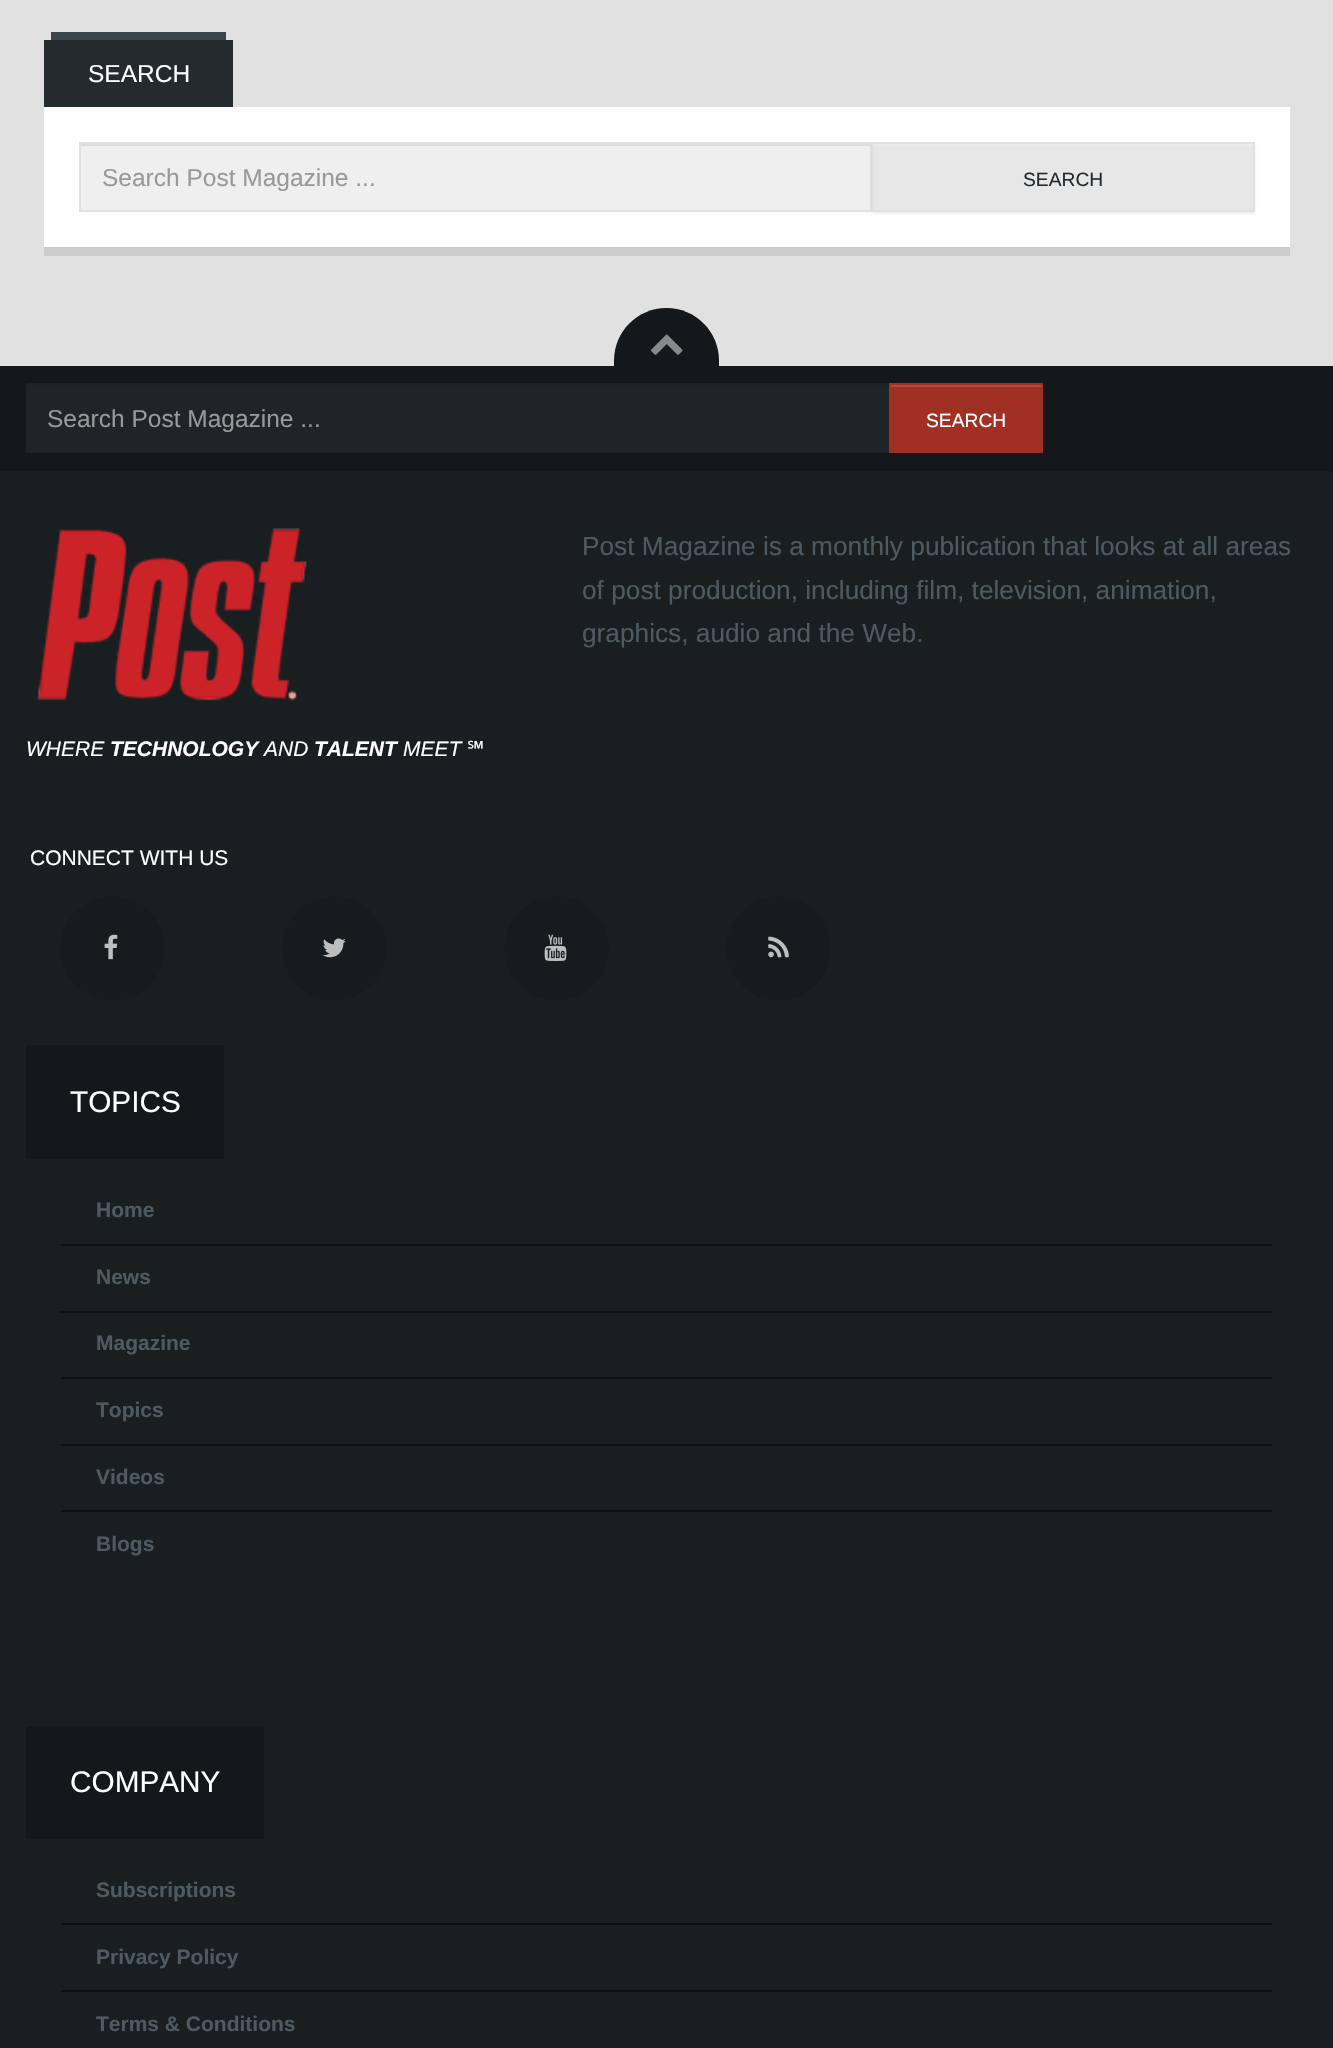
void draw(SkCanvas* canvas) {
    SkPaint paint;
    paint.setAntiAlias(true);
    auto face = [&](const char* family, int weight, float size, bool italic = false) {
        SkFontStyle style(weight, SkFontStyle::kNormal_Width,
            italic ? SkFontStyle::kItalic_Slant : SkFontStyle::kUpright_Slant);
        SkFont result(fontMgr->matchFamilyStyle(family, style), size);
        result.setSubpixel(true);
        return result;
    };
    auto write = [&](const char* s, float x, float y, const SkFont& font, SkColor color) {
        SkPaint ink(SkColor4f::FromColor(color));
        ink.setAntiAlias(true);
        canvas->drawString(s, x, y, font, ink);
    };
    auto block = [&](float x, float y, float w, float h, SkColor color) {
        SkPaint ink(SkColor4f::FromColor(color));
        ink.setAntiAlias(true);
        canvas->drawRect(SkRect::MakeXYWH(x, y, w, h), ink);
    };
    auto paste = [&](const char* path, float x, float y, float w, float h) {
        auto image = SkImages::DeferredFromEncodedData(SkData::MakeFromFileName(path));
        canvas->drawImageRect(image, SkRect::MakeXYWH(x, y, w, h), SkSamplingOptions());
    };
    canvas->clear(SkColorSetRGB(225, 225, 225));
    block(51, 32, 175, 8, SkColorSetRGB(58, 69, 76));
    block(44, 40, 189, 67, SkColorSetRGB(36, 43, 47));
    auto kFont1 = face("Liberation Sans", 400, 24.5f);
    write("SEARCH", 88, 82, kFont1, SK_ColorWHITE);
    block(44, 107, 1246, 140, SK_ColorWHITE);
    block(44, 247, 1246, 9, SkColorSetRGB(204, 204, 204));
    block(81, 146, 789, 64, SkColorSetRGB(239, 239, 239));
    block(81, 144, 789, 2, SkColorSetRGB(221, 221, 221));
    paint.setStyle(SkPaint::kStroke_Style);
    paint.setStrokeWidth(2);
    paint.setColor(SkColorSetRGB(225, 225, 225));
    canvas->drawRect(SkRect::MakeXYWH(80, 143, 791, 68), paint);
    write("Search Post Magazine ...", 102, 186, kFont1, SkColorSetRGB(153, 153, 153));
    paint.setStyle(SkPaint::kFill_Style);
    paint.setColor(SkColorSetARGB(18, 0, 0, 0));
    paint.setMaskFilter(SkMaskFilter::MakeBlur(kNormal_SkBlurStyle, 1));
    canvas->drawRect(SkRect::MakeXYWH(872, 144, 383, 70), paint);
    paint.setMaskFilter(nullptr);
    block(874, 146, 379, 64, SkColorSetRGB(231, 231, 231));
    block(873, 144, 380, 2, SkColorSetRGB(235, 235, 235));
    paint.setStyle(SkPaint::kStroke_Style);
    paint.setColor(SkColorSetRGB(225, 225, 225));
    canvas->drawRect(SkRect::MakeXYWH(873, 143, 381, 68), paint);
    auto kFont2 = face("Liberation Sans", 400, 19.25f);
    write("SEARCH", 1023, 186, kFont2, SkColorSetRGB(36, 43, 47));
    paint.setStyle(SkPaint::kFill_Style);
    paint.setColor(SkColorSetRGB(20, 24, 27));
    canvas->drawPath(SkPathBuilder().moveTo(666.5f, 308).cubicTo(695.5f, 308, 719, 331.5f, 719, 360.5f).lineTo(719, 366).lineTo(614, 366).lineTo(614, 360.5f).cubicTo(614, 331.5f, 637.5f, 308, 666.5f, 308).close().detach(), paint);
    paste("pic1.png", 651, 334, 32, 21);
    block(0, 366, 1333, 105, SkColorSetRGB(20, 24, 27));
    block(26, 385, 863, 68, SkColorSetRGB(30, 36, 40));
    block(26, 383, 863, 2, SkColorSetRGB(28, 33, 37));
    write("Search Post Magazine ...", 47, 427, kFont1, SkColorSetRGB(153, 153, 153));
    block(889, 383, 154, 70, SkColorSetRGB(160, 47, 36));
    block(891, 385, 150, 2, SkColorSetRGB(174, 78, 69));
    write("SEARCH", 926, 427, kFont2, SK_ColorWHITE);
    block(0, 471, 1333, 1577, SkColorSetRGB(25, 30, 33));
    auto kFont3 = face("Liberation Sans", 400, 26.25f);
    write("Post Magazine is a monthly publication that looks at all areas", 582, 555, kFont3, SkColorSetRGB(77, 90, 98));
    write("of post production, including film, television, animation,", 582, 599, kFont3, SkColorSetRGB(77, 90, 98));
    write("graphics, audio and the Web.", 582, 642, kFont3, SkColorSetRGB(77, 90, 98));
    paste("pic2.png", 37, 528, 270, 173);
    auto kFont4 = face("Liberation Sans", 400, 21, true);
    write("WHERE", 26, 756, kFont4, SK_ColorWHITE);
    auto kFont5 = face("Liberation Sans", 700, 21, true);
    write("TECHNOLOGY", 110, 756, kFont5, SK_ColorWHITE);
    write("AND", 264, 756, kFont4, SK_ColorWHITE);
    write("TALENT", 314, 756, kFont5, SK_ColorWHITE);
    write("MEET", 403, 756, kFont4, SK_ColorWHITE);
    auto kFont6 = face("Noto Sans", 400, 21);
    write("℠", 467, 756, kFont6, SK_ColorWHITE);
    auto kFont7 = face("Liberation Sans", 400, 21);
    write("CONNECT WITH US", 30, 865, kFont7, SK_ColorWHITE);
    paint.setColor(SkColorSetRGB(23, 27, 30));
    canvas->drawCircle(112.5f, 948.5f, 52.5f, paint);
    paste("pic3.png", 104, 934, 14, 26);
    canvas->drawCircle(334.5f, 948.5f, 52.5f, paint);
    paste("pic4.png", 322, 938, 24, 20);
    canvas->drawCircle(556.5f, 948.5f, 52.5f, paint);
    paste("pic5.png", 544, 934, 23, 27);
    canvas->drawCircle(778.5f, 948.5f, 52.5f, paint);
    paste("pic6.png", 768, 936, 21, 22);
    block(26, 1045, 198, 114, SkColorSetRGB(20, 24, 27));
    auto kFont8 = face("Liberation Sans", 400, 29.75f);
    write("TOPICS", 70, 1112, kFont8, SK_ColorWHITE);
    auto kFont9 = face("Liberation Sans", 700, 21);
    write("Home", 96, 1217, kFont9, SkColorSetRGB(77, 90, 98));
    block(61, 1244, 1211, 2, SkColorSetRGB(13, 15, 17));
    write("News", 96, 1284, kFont9, SkColorSetRGB(77, 90, 98));
    block(61, 1311, 1211, 2, SkColorSetRGB(13, 15, 17));
    write("Magazine", 96, 1350, kFont9, SkColorSetRGB(77, 90, 98));
    block(61, 1377, 1211, 2, SkColorSetRGB(13, 15, 17));
    write("Topics", 96, 1417, kFont9, SkColorSetRGB(77, 90, 98));
    block(61, 1444, 1211, 2, SkColorSetRGB(13, 15, 17));
    write("Videos", 96, 1484, kFont9, SkColorSetRGB(77, 90, 98));
    block(61, 1510, 1211, 2, SkColorSetRGB(13, 15, 17));
    write("Blogs", 96, 1551, kFont9, SkColorSetRGB(77, 90, 98));
    block(26, 1726, 238, 113, SkColorSetRGB(20, 24, 27));
    write("COMPANY", 70, 1792, kFont8, SK_ColorWHITE);
    write("Subscriptions", 96, 1897, kFont9, SkColorSetRGB(77, 90, 98));
    block(61, 1923, 1211, 2, SkColorSetRGB(13, 15, 17));
    write("Privacy Policy", 96, 1964, kFont9, SkColorSetRGB(77, 90, 98));
    block(61, 1990, 1211, 2, SkColorSetRGB(13, 15, 17));
    write("Terms & Conditions", 96, 2031, kFont9, SkColorSetRGB(77, 90, 98));
}
